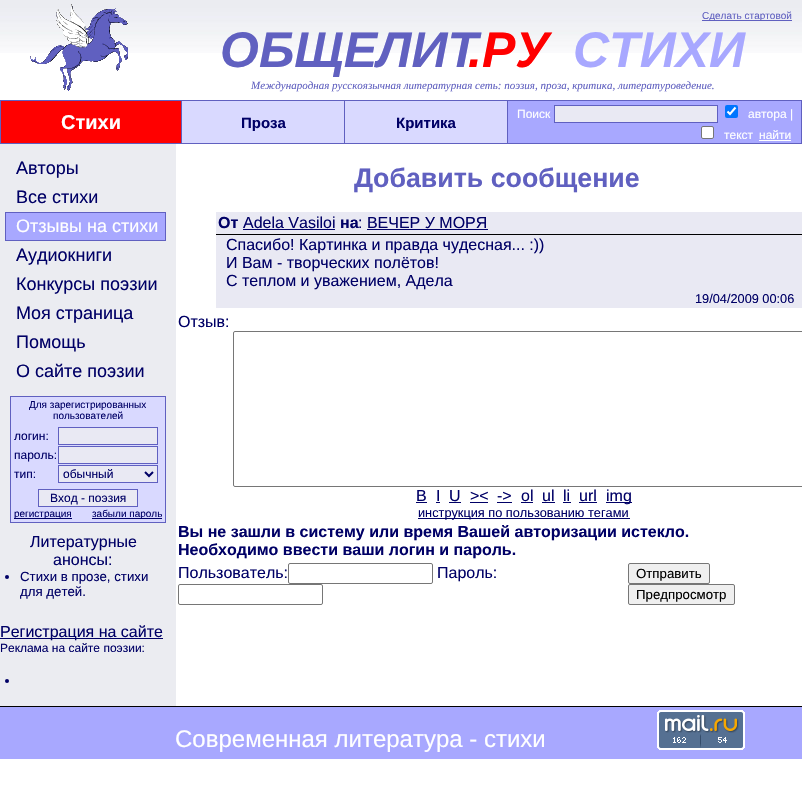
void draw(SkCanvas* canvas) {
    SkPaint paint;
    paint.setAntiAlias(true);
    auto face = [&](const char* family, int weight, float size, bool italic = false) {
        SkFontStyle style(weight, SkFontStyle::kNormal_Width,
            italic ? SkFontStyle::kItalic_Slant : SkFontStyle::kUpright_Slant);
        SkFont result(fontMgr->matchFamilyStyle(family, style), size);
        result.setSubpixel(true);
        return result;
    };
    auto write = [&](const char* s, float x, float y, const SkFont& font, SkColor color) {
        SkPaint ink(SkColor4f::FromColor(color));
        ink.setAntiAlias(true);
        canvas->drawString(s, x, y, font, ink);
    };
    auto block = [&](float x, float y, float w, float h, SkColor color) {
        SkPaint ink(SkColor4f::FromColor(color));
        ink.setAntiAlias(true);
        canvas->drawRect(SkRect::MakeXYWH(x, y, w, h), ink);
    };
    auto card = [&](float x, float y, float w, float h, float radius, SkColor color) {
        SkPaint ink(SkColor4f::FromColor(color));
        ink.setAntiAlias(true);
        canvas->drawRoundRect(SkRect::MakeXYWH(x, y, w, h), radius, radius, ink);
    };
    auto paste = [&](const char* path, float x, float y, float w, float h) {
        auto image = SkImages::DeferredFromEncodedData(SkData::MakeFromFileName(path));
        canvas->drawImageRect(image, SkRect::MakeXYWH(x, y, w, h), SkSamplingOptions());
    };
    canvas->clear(SK_ColorWHITE);
    paste("pic1.png", 0, 0, 802, 53);
    paste("pic2.png", 30, 4, 98, 87);
    block(702, 20, 90, 1, SkColorSetRGB(96, 96, 192));
    auto kFont1 = face("Liberation Sans", 400, 10);
    write("Сделать стартовой", 702, 19, kFont1, SkColorSetRGB(96, 96, 192));
    auto kFont2 = face("Liberation Sans", 700, 50, true);
    write("ОБЩЕЛИТ", 220, 67, kFont2, SkColorSetRGB(96, 96, 192));
    write(".РУ", 468, 67, kFont2, SkColorSetRGB(255, 0, 0));
    write("СТИХИ", 573, 67, kFont2, SkColorSetRGB(168, 168, 255));
    auto kFont3 = face("Liberation Serif", 400, 11, true);
    write("Международная русскоязычная литературная сеть: поэзия, проза, критика, литературоведение.", 251, 89, kFont3, SkColorSetRGB(96, 96, 192));
    block(0, 100, 802, 44, SkColorSetRGB(96, 96, 192));
    block(1, 101, 180, 42, SkColorSetRGB(255, 0, 0));
    auto kFont4 = face("Liberation Sans", 700, 20);
    write("Стихи", 61, 129, kFont4, SK_ColorWHITE);
    block(182, 101, 162, 42, SkColorSetRGB(217, 217, 255));
    auto kFont5 = face("Liberation Sans", 700, 15);
    write("Проза", 241, 128, kFont5, SkColorSetRGB(0, 0, 102));
    block(345, 101, 162, 42, SkColorSetRGB(217, 217, 255));
    write("Критика", 396, 128, kFont5, SkColorSetRGB(0, 0, 102));
    block(508, 101, 293, 42, SkColorSetRGB(168, 168, 255));
    auto kFont6 = face("Liberation Sans", 400, 12);
    write("Поиск", 517, 118, kFont6, SK_ColorWHITE);
    paint.setColor(SkColorSetRGB(233, 233, 243));
    canvas->drawRect(SkRect::MakeXYWH(554.5f, 105.5f, 163, 17), paint);
    paint.setStyle(SkPaint::kStroke_Style);
    paint.setStrokeWidth(1);
    paint.setColor(SkColorSetRGB(96, 96, 192));
    canvas->drawRect(SkRect::MakeXYWH(554.5f, 105.5f, 163, 17), paint);
    card(725, 105, 13, 13, 2, SkColorSetRGB(0, 117, 255));
    paint.setStrokeWidth(2.1f);
    paint.setColor(SK_ColorWHITE);
    canvas->drawPath(SkPathBuilder().moveTo(727.5f, 111.5f).lineTo(730, 114).lineTo(735.5f, 107.5f).detach(), paint);
    write("автора |", 748, 118, kFont6, SK_ColorWHITE);
    paint.setStyle(SkPaint::kFill_Style);
    canvas->drawRoundRect(SkRect::MakeXYWH(701.5f, 126.5f, 12, 12), 1.5f, 1.5f, paint);
    paint.setStyle(SkPaint::kStroke_Style);
    paint.setStrokeWidth(1);
    paint.setColor(SkColorSetRGB(118, 118, 118));
    canvas->drawRoundRect(SkRect::MakeXYWH(701.5f, 126.5f, 12, 12), 1.5f, 1.5f, paint);
    write("текст", 724, 139, kFont6, SK_ColorWHITE);
    write("найти", 759, 139, kFont6, SK_ColorWHITE);
    block(759, 140, 32, 1, SK_ColorWHITE);
    block(0, 144, 176, 562, SkColorSetRGB(235, 236, 241));
    auto kFont7 = face("Liberation Sans", 400, 18);
    write("Авторы", 16, 174, kFont7, SkColorSetRGB(0, 0, 102));
    write("Все стихи", 16, 203, kFont7, SkColorSetRGB(0, 0, 102));
    paint.setStyle(SkPaint::kFill_Style);
    paint.setColor(SkColorSetRGB(168, 168, 255));
    canvas->drawRect(SkRect::MakeXYWH(5.5f, 212.5f, 160, 28), paint);
    paint.setStyle(SkPaint::kStroke_Style);
    paint.setColor(SkColorSetRGB(96, 96, 192));
    canvas->drawRect(SkRect::MakeXYWH(5.5f, 212.5f, 160, 28), paint);
    write("Отзывы на стихи", 16, 232, kFont7, SK_ColorWHITE);
    write("Аудиокниги", 16, 261, kFont7, SkColorSetRGB(0, 0, 102));
    write("Конкурсы поэзии", 16, 290, kFont7, SkColorSetRGB(0, 0, 102));
    write("Моя страница", 16, 319, kFont7, SkColorSetRGB(0, 0, 102));
    write("Помощь", 16, 348, kFont7, SkColorSetRGB(0, 0, 102));
    write("О сайте поэзии", 16, 377, kFont7, SkColorSetRGB(0, 0, 102));
    paint.setStyle(SkPaint::kFill_Style);
    paint.setColor(SkColorSetRGB(217, 217, 255));
    canvas->drawRect(SkRect::MakeXYWH(10.5f, 396.5f, 155, 126), paint);
    paint.setStyle(SkPaint::kStroke_Style);
    paint.setColor(SkColorSetRGB(96, 96, 192));
    canvas->drawRect(SkRect::MakeXYWH(10.5f, 396.5f, 155, 126), paint);
    write("Для зарегистрированных", 29, 408, kFont1, SkColorSetRGB(0, 0, 102));
    write("пользователей", 53, 419, kFont1, SkColorSetRGB(0, 0, 102));
    write("логин:", 14, 440, kFont6, SkColorSetRGB(0, 0, 102));
    paint.setStyle(SkPaint::kFill_Style);
    paint.setColor(SkColorSetRGB(233, 233, 243));
    canvas->drawRect(SkRect::MakeXYWH(58.5f, 427.5f, 99, 17), paint);
    paint.setStyle(SkPaint::kStroke_Style);
    paint.setColor(SkColorSetRGB(96, 96, 192));
    canvas->drawRect(SkRect::MakeXYWH(58.5f, 427.5f, 99, 17), paint);
    write("пароль:", 14, 459, kFont6, SkColorSetRGB(0, 0, 102));
    paint.setStyle(SkPaint::kFill_Style);
    paint.setColor(SkColorSetRGB(233, 233, 243));
    canvas->drawRect(SkRect::MakeXYWH(58.5f, 446.5f, 99, 17), paint);
    paint.setStyle(SkPaint::kStroke_Style);
    paint.setColor(SkColorSetRGB(96, 96, 192));
    canvas->drawRect(SkRect::MakeXYWH(58.5f, 446.5f, 99, 17), paint);
    write("тип:", 14, 478, kFont6, SkColorSetRGB(0, 0, 102));
    paint.setStyle(SkPaint::kFill_Style);
    paint.setColor(SkColorSetRGB(233, 233, 243));
    canvas->drawRect(SkRect::MakeXYWH(58.5f, 465.5f, 99, 17), paint);
    paint.setStyle(SkPaint::kStroke_Style);
    paint.setColor(SkColorSetRGB(96, 96, 192));
    canvas->drawRect(SkRect::MakeXYWH(58.5f, 465.5f, 99, 17), paint);
    paint.setStrokeWidth(2);
    paint.setColor(SkColorSetRGB(0, 0, 102));
    canvas->drawPath(SkPathBuilder().moveTo(145, 472).lineTo(149, 476).lineTo(153, 472).detach(), paint);
    write("обычный", 63, 478, kFont6, SkColorSetRGB(0, 0, 102));
    paint.setStyle(SkPaint::kFill_Style);
    paint.setColor(SkColorSetRGB(233, 233, 243));
    canvas->drawRect(SkRect::MakeXYWH(38.5f, 489.5f, 99, 17), paint);
    paint.setStyle(SkPaint::kStroke_Style);
    paint.setStrokeWidth(1);
    paint.setColor(SkColorSetRGB(96, 96, 192));
    canvas->drawRect(SkRect::MakeXYWH(38.5f, 489.5f, 99, 17), paint);
    write("Вход - поэзия", 50, 502, kFont6, SkColorSetRGB(0, 0, 102));
    block(14, 518, 58, 1, SkColorSetRGB(0, 0, 102));
    write("регистрация", 14, 517, kFont1, SkColorSetRGB(0, 0, 102));
    block(92, 518, 70, 1, SkColorSetRGB(0, 0, 102));
    write("забыли пароль", 92, 517, kFont1, SkColorSetRGB(0, 0, 102));
    auto kFont8 = face("Liberation Sans", 400, 16);
    write("Литературные", 30, 547, kFont8, SkColorSetRGB(0, 0, 102));
    write("анонсы:", 53, 565, kFont8, SkColorSetRGB(0, 0, 102));
    paint.setStyle(SkPaint::kFill_Style);
    paint.setColor(SkColorSetRGB(0, 0, 102));
    canvas->drawCircle(7, 577, 2, paint);
    auto kFont9 = face("Liberation Sans", 400, 13.25f);
    write("Стихи в прозе, стихи", 20, 581, kFont9, SkColorSetRGB(0, 0, 102));
    write("для детей.", 20, 596, kFont9, SkColorSetRGB(0, 0, 102));
    block(0, 638, 163, 1, SkColorSetRGB(0, 0, 102));
    write("Регистрация на сайте", 0, 637, kFont8, SkColorSetRGB(0, 0, 102));
    write("Реклама на сайте поэзии:", 0, 652, kFont6, SkColorSetRGB(0, 0, 102));
    canvas->drawCircle(7, 681, 2, paint);
    auto kFont10 = face("Liberation Sans", 700, 26.75f);
    write("Добавить сообщение", 354, 187, kFont10, SkColorSetRGB(96, 96, 192));
    block(216, 212, 579, 22, SkColorSetRGB(233, 233, 243));
    block(216, 234, 579, 1, SK_ColorBLACK);
    auto kFont11 = face("Liberation Sans", 700, 16);
    write("От", 218, 228, kFont11, SkColorSetRGB(0, 0, 102));
    write("Adela Vasiloi", 243, 228, kFont8, SkColorSetRGB(0, 0, 102));
    block(243, 229, 92, 1, SkColorSetRGB(0, 0, 102));
    write("на", 340, 228, kFont11, SkColorSetRGB(0, 0, 102));
    write(": ВЕЧЕР У МОРЯ", 358, 228, kFont8, SkColorSetRGB(0, 0, 102));
    block(367, 229, 121, 1, SkColorSetRGB(0, 0, 102));
    block(795, 212, 7, 23, SkColorSetRGB(233, 233, 243));
    block(795, 234, 7, 1, SK_ColorBLACK);
    block(216, 235, 586, 73, SkColorSetRGB(233, 233, 243));
    write("Спасибо! Картинка и правда чудесная... :))", 226, 250, kFont8, SkColorSetRGB(0, 0, 102));
    write("И Вам - творческих полётов!", 226, 268, kFont8, SkColorSetRGB(0, 0, 102));
    write("С теплом и уважением, Адела", 226, 286, kFont8, SkColorSetRGB(0, 0, 102));
    auto kFont12 = face("Liberation Sans", 400, 12.75f);
    write("19/04/2009 00:06", 695, 303, kFont12, SkColorSetRGB(0, 0, 102));
    write("Отзыв:", 178, 327, kFont8, SkColorSetRGB(0, 0, 102));
    paint.setStyle(SkPaint::kStroke_Style);
    paint.setColor(SkColorSetRGB(118, 118, 118));
    canvas->drawRoundRect(SkRect::MakeXYWH(233.5f, 331.5f, 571, 155), 1.5f, 1.5f, paint);
    write("B", 416, 501, kFont8, SkColorSetRGB(0, 0, 102));
    block(416, 502, 11, 1, SkColorSetRGB(0, 0, 102));
    write("I", 436, 501, kFont8, SkColorSetRGB(0, 0, 102));
    block(436, 502, 4, 1, SkColorSetRGB(0, 0, 102));
    write("U", 449, 501, kFont8, SkColorSetRGB(0, 0, 102));
    block(449, 502, 12, 1, SkColorSetRGB(0, 0, 102));
    write("><", 470, 501, kFont8, SkColorSetRGB(0, 0, 102));
    block(470, 502, 18, 1, SkColorSetRGB(0, 0, 102));
    write("->", 497, 501, kFont8, SkColorSetRGB(0, 0, 102));
    block(497, 502, 15, 1, SkColorSetRGB(0, 0, 102));
    write("ol", 521, 501, kFont8, SkColorSetRGB(0, 0, 102));
    block(521, 502, 12, 1, SkColorSetRGB(0, 0, 102));
    write("ul", 542, 501, kFont8, SkColorSetRGB(0, 0, 102));
    block(542, 502, 13, 1, SkColorSetRGB(0, 0, 102));
    write("li", 563, 501, kFont8, SkColorSetRGB(0, 0, 102));
    block(563, 502, 8, 1, SkColorSetRGB(0, 0, 102));
    write("url", 579, 501, kFont8, SkColorSetRGB(0, 0, 102));
    block(579, 502, 18, 1, SkColorSetRGB(0, 0, 102));
    block(606, 502, 26, 1, SkColorSetRGB(0, 0, 102));
    write("img", 606, 501, kFont8, SkColorSetRGB(0, 0, 102));
    block(418, 518, 212, 1, SkColorSetRGB(0, 0, 102));
    write("инструкция по пользованию тегами", 418, 517, kFont12, SkColorSetRGB(0, 0, 102));
    write("Вы не зашли в систему или время Вашей авторизации истекло.", 178, 537, kFont11, SkColorSetRGB(0, 0, 102));
    write("Необходимо ввести ваши логин и пароль.", 178, 555, kFont11, SkColorSetRGB(0, 0, 102));
    write("Пользователь:", 178, 578, kFont8, SkColorSetRGB(0, 0, 102));
    canvas->drawRoundRect(SkRect::MakeXYWH(288.5f, 563.5f, 144, 20), 1.5f, 1.5f, paint);
    write("Пароль:", 437, 578, kFont8, SkColorSetRGB(0, 0, 102));
    canvas->drawRoundRect(SkRect::MakeXYWH(178.5f, 584.5f, 144, 20), 1.5f, 1.5f, paint);
    paint.setStyle(SkPaint::kFill_Style);
    paint.setColor(SkColorSetRGB(239, 239, 239));
    canvas->drawRoundRect(SkRect::MakeXYWH(628.5f, 563.5f, 81, 20), 1.5f, 1.5f, paint);
    paint.setStyle(SkPaint::kStroke_Style);
    paint.setColor(SkColorSetRGB(118, 118, 118));
    canvas->drawRoundRect(SkRect::MakeXYWH(628.5f, 563.5f, 81, 20), 1.5f, 1.5f, paint);
    write("Отправить", 636, 578, kFont9, SK_ColorBLACK);
    paint.setStyle(SkPaint::kFill_Style);
    paint.setColor(SkColorSetRGB(239, 239, 239));
    canvas->drawRoundRect(SkRect::MakeXYWH(628.5f, 584.5f, 106, 20), 1.5f, 1.5f, paint);
    paint.setStyle(SkPaint::kStroke_Style);
    paint.setColor(SkColorSetRGB(118, 118, 118));
    canvas->drawRoundRect(SkRect::MakeXYWH(628.5f, 584.5f, 106, 20), 1.5f, 1.5f, paint);
    write("Предпросмотр", 636, 599, kFont9, SK_ColorBLACK);
    block(0, 707, 802, 52, SkColorSetRGB(168, 168, 255));
    block(0, 706, 802, 1, SK_ColorBLACK);
    auto kFont13 = face("Liberation Sans", 400, 24);
    write("Современная литература - стихи", 175, 747, kFont13, SK_ColorWHITE);
    paste("pic3.png", 657, 710, 88, 40);
}
